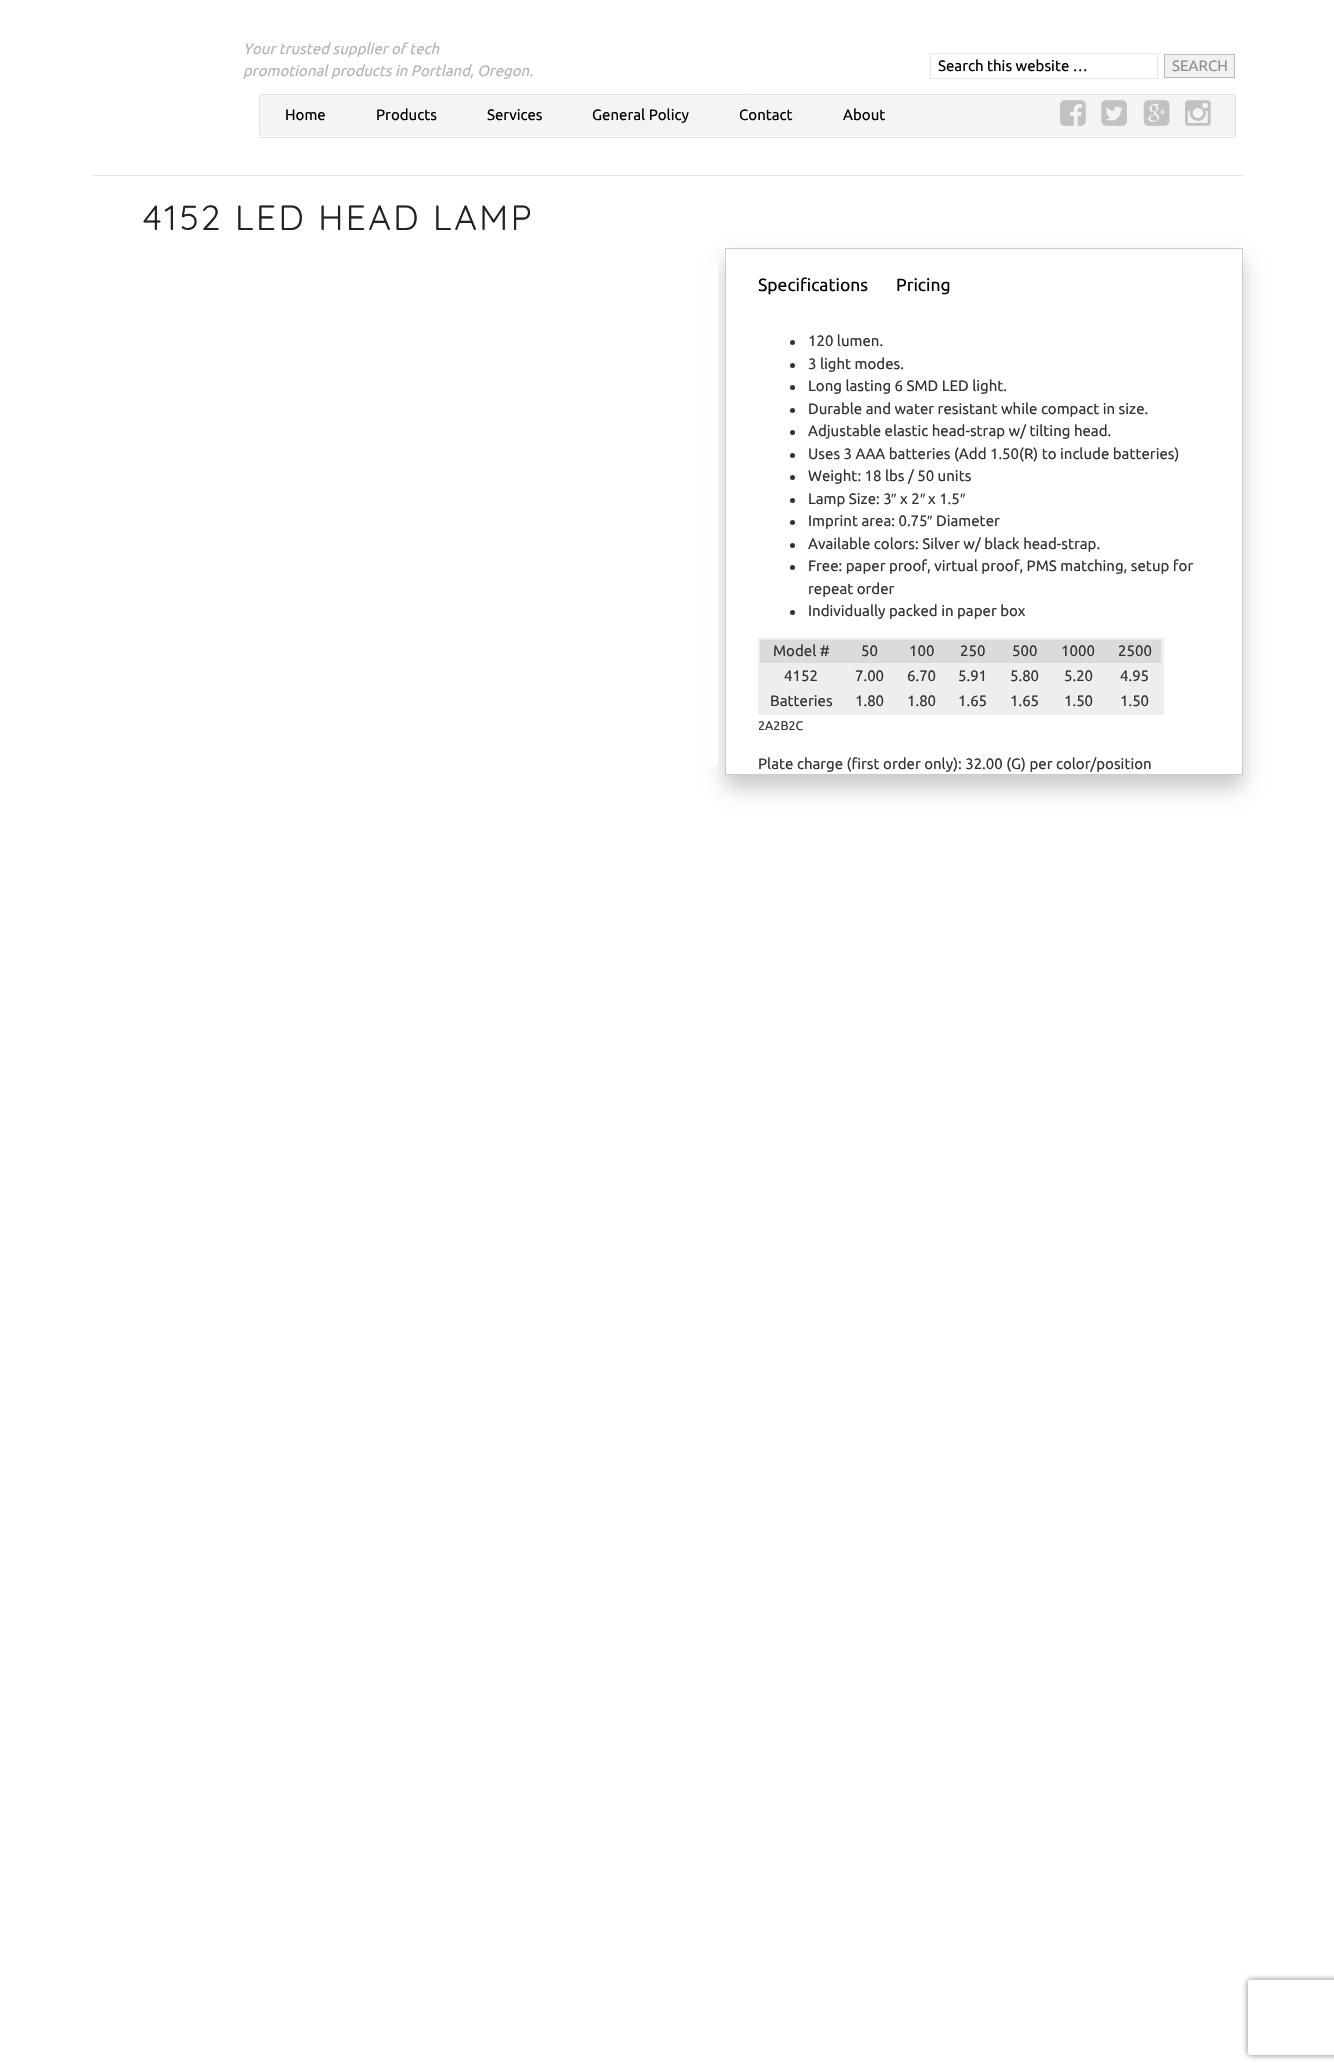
void draw(SkCanvas* canvas) {
    SkPaint paint;
    paint.setAntiAlias(true);
    auto face = [&](const char* family, int weight, float size, bool italic = false) {
        SkFontStyle style(weight, SkFontStyle::kNormal_Width,
            italic ? SkFontStyle::kItalic_Slant : SkFontStyle::kUpright_Slant);
        SkFont result(fontMgr->matchFamilyStyle(family, style), size);
        result.setSubpixel(true);
        return result;
    };
    auto write = [&](const char* s, float x, float y, const SkFont& font, SkColor color) {
        SkPaint ink(SkColor4f::FromColor(color));
        ink.setAntiAlias(true);
        canvas->drawString(s, x, y, font, ink);
    };
    auto writeSpaced = [&](const char* s, float x, float y, const SkFont& font, const SkPaint& ink, float letter, float word) {
        std::vector<SkGlyphID> glyphs(font.countText(s, strlen(s), SkTextEncoding::kUTF8));
        std::vector<float> xs(glyphs.size());
        font.textToGlyphs(s, strlen(s), SkTextEncoding::kUTF8, glyphs);
        font.getXPos(glyphs, xs, x);
        float extra = 0;
        for (size_t i = 0; i < glyphs.size(); i++) {
            xs[i] += extra;
            extra += letter + word * (glyphs[i] == font.unicharToGlyph(' '));
        }
        canvas->drawTextBlob(SkTextBlob::MakeFromPosHGlyphs(glyphs, xs, y, font), 0, 0, ink);
    };
    auto block = [&](float x, float y, float w, float h, SkColor color) {
        SkPaint ink(SkColor4f::FromColor(color));
        ink.setAntiAlias(true);
        canvas->drawRect(SkRect::MakeXYWH(x, y, w, h), ink);
    };
    auto card = [&](float x, float y, float w, float h, float radius, SkColor color) {
        SkPaint ink(SkColor4f::FromColor(color));
        ink.setAntiAlias(true);
        canvas->drawRoundRect(SkRect::MakeXYWH(x, y, w, h), radius, radius, ink);
    };
    auto paste = [&](const char* path, float x, float y, float w, float h) {
        auto image = SkImages::DeferredFromEncodedData(SkData::MakeFromFileName(path));
        canvas->drawImageRect(image, SkRect::MakeXYWH(x, y, w, h), SkSamplingOptions());
    };
    canvas->clear(SK_ColorWHITE);
    auto kFont1 = face("Ubuntu", 400, 15, true);
    write("Your trusted supplier of tech", 243, 54, kFont1, SkColorSetRGB(180, 180, 180));
    write("promotional products in Portland, Oregon.", 243, 76, kFont1, SkColorSetRGB(180, 180, 180));
    paint.setStyle(SkPaint::kStroke_Style);
    paint.setStrokeWidth(1);
    paint.setColor(SkColorSetRGB(230, 230, 230));
    canvas->drawRect(SkRect::MakeXYWH(930.5f, 53.5f, 227, 25), paint);
    auto kFont2 = face("Ubuntu", 400, 15);
    write("Search this website …", 938, 71, kFont2, SK_ColorBLACK);
    paint.setStyle(SkPaint::kFill_Style);
    paint.setColor(SkColorSetRGB(241, 241, 241));
    canvas->drawRect(SkRect::MakeXYWH(1164.5f, 54.5f, 70, 23), paint);
    paint.setStyle(SkPaint::kStroke_Style);
    paint.setColor(SkColorSetRGB(187, 187, 187));
    canvas->drawRect(SkRect::MakeXYWH(1164.5f, 54.5f, 70, 23), paint);
    write("SEARCH", 1172, 71, kFont2, SkColorSetRGB(144, 144, 144));
    card(260, 95, 975, 41, 1, SkColorSetRGB(244, 244, 244));
    paint.setColor(SkColorSetRGB(224, 224, 224));
    canvas->drawRoundRect(SkRect::MakeXYWH(259.5f, 94.5f, 976, 43), 2, 2, paint);
    write("Home", 285, 120, kFont2, SK_ColorBLACK);
    write("Products", 376, 120, kFont2, SK_ColorBLACK);
    write("Services", 487, 120, kFont2, SK_ColorBLACK);
    write("General Policy", 592, 120, kFont2, SK_ColorBLACK);
    write("Contact", 739, 120, kFont2, SK_ColorBLACK);
    write("About", 843, 120, kFont2, SK_ColorBLACK);
    paste("pic1.png", 1060, 100, 26, 26);
    paste("pic2.png", 1101, 100, 26, 26);
    paste("pic3.png", 1143, 100, 27, 26);
    paste("pic4.png", 1185, 100, 26, 26);
    block(93, 175, 1150, 1, SkColorSetRGB(228, 228, 228));
    auto kFont3 = face("Quicksand", 400, 35);
    paint.setStyle(SkPaint::kFill_Style);
    paint.setColor(SkColorSetRGB(34, 34, 34));
    writeSpaced("4152 LED HEAD LAMP", 143, 230, kFont3, paint, 2.5f, 0);
    paint.setColor(SkColorSetRGB(202, 202, 202));
    paint.setMaskFilter(SkMaskFilter::MakeBlur(kNormal_SkBlurStyle, 9.5f));
    canvas->drawRect(SkRect::MakeXYWH(725, 260, 518, 528), paint);
    paint.setMaskFilter(nullptr);
    block(709, 265, 9, 500, SK_ColorWHITE);
    paint.setColor(SK_ColorWHITE);
    canvas->drawRect(SkRect::MakeXYWH(725.5f, 248.5f, 517, 526), paint);
    paint.setStyle(SkPaint::kStroke_Style);
    paint.setColor(SkColorSetRGB(202, 202, 202));
    canvas->drawRect(SkRect::MakeXYWH(725.5f, 248.5f, 517, 526), paint);
    auto kFont4 = face("Ubuntu", 400, 17.5f);
    write("Specifications", 758, 291, kFont4, SK_ColorBLACK);
    write("Pricing", 896, 291, kFont4, SK_ColorBLACK);
    paint.setStyle(SkPaint::kFill_Style);
    paint.setColor(SkColorSetRGB(51, 51, 51));
    canvas->drawCircle(792.5f, 342.5f, 2.5f, paint);
    write("120 lumen.", 808, 346, kFont2, SkColorSetRGB(51, 51, 51));
    canvas->drawCircle(792.5f, 365.5f, 2.5f, paint);
    write("3 light modes.", 808, 369, kFont2, SkColorSetRGB(51, 51, 51));
    canvas->drawCircle(792.5f, 387.5f, 2.5f, paint);
    write("Long lasting 6 SMD LED light.", 808, 391, kFont2, SkColorSetRGB(51, 51, 51));
    canvas->drawCircle(792.5f, 410.5f, 2.5f, paint);
    write("Durable and water resistant while compact in size.", 808, 414, kFont2, SkColorSetRGB(51, 51, 51));
    canvas->drawCircle(792.5f, 432.5f, 2.5f, paint);
    write("Adjustable elastic head-strap w/ tilting head.", 808, 436, kFont2, SkColorSetRGB(51, 51, 51));
    canvas->drawCircle(792.5f, 455.5f, 2.5f, paint);
    write("Uses 3 AAA batteries (Add 1.50(R) to include batteries)", 808, 459, kFont2, SkColorSetRGB(51, 51, 51));
    canvas->drawCircle(792.5f, 477.5f, 2.5f, paint);
    write("Weight: 18 lbs / 50 units", 808, 481, kFont2, SkColorSetRGB(51, 51, 51));
    write("Lamp Size: 3", 808, 504, kFont2, SkColorSetRGB(51, 51, 51));
    auto kFont5 = face("Liberation Sans", 400, 15);
    write("″", 891, 504, kFont5, SkColorSetRGB(51, 51, 51));
    write("x 2", 900, 504, kFont2, SkColorSetRGB(51, 51, 51));
    write("″", 920, 504, kFont5, SkColorSetRGB(51, 51, 51));
    write("x 1.5", 928, 504, kFont2, SkColorSetRGB(51, 51, 51));
    write("″", 960, 504, kFont5, SkColorSetRGB(51, 51, 51));
    canvas->drawCircle(792.5f, 500.5f, 2.5f, paint);
    write("Imprint area: 0.75", 808, 526, kFont2, SkColorSetRGB(51, 51, 51));
    write("″", 927, 526, kFont5, SkColorSetRGB(51, 51, 51));
    write("Diameter", 936, 526, kFont2, SkColorSetRGB(51, 51, 51));
    canvas->drawCircle(792.5f, 522.5f, 2.5f, paint);
    canvas->drawCircle(792.5f, 545.5f, 2.5f, paint);
    write("Available colors: Silver w/ black head-strap.", 808, 549, kFont2, SkColorSetRGB(51, 51, 51));
    canvas->drawCircle(792.5f, 567.5f, 2.5f, paint);
    write("Free: paper proof, virtual proof, PMS matching, setup for", 808, 571, kFont2, SkColorSetRGB(51, 51, 51));
    write("repeat order", 808, 594, kFont2, SkColorSetRGB(51, 51, 51));
    canvas->drawCircle(792.5f, 612.5f, 2.5f, paint);
    write("Individually packed in paper box", 808, 616, kFont2, SkColorSetRGB(51, 51, 51));
    block(758, 638, 406, 77, SkColorSetRGB(238, 238, 238));
    block(760, 640, 401, 23, SkColorSetRGB(219, 219, 219));
    write("Model #", 773, 656, kFont2, SkColorSetRGB(51, 51, 51));
    write("50", 861, 656, kFont2, SkColorSetRGB(51, 51, 51));
    write("100", 909, 656, kFont2, SkColorSetRGB(51, 51, 51));
    write("250", 960, 656, kFont2, SkColorSetRGB(51, 51, 51));
    write("500", 1012, 656, kFont2, SkColorSetRGB(51, 51, 51));
    write("1000", 1061, 656, kFont2, SkColorSetRGB(51, 51, 51));
    write("2500", 1118, 656, kFont2, SkColorSetRGB(51, 51, 51));
    write("4152", 784, 681, kFont2, SkColorSetRGB(51, 51, 51));
    write("7.00", 855, 681, kFont2, SkColorSetRGB(51, 51, 51));
    write("6.70", 907, 681, kFont2, SkColorSetRGB(51, 51, 51));
    write("5.91", 958, 681, kFont2, SkColorSetRGB(51, 51, 51));
    write("5.80", 1010, 681, kFont2, SkColorSetRGB(51, 51, 51));
    write("5.20", 1064, 681, kFont2, SkColorSetRGB(51, 51, 51));
    write("4.95", 1120, 681, kFont2, SkColorSetRGB(51, 51, 51));
    write("Batteries", 770, 706, kFont2, SkColorSetRGB(51, 51, 51));
    write("1.80", 855, 706, kFont2, SkColorSetRGB(51, 51, 51));
    write("1.80", 907, 706, kFont2, SkColorSetRGB(51, 51, 51));
    write("1.65", 958, 706, kFont2, SkColorSetRGB(51, 51, 51));
    write("1.65", 1010, 706, kFont2, SkColorSetRGB(51, 51, 51));
    write("1.50", 1064, 706, kFont2, SkColorSetRGB(51, 51, 51));
    write("1.50", 1120, 706, kFont2, SkColorSetRGB(51, 51, 51));
    auto kFont6 = face("Ubuntu", 400, 12.5f);
    write("2A2B2C", 758, 730, kFont6, SkColorSetRGB(51, 51, 51));
    write("Plate charge (first order only): 32.00 (G) per color/position", 758, 769, kFont2, SkColorSetRGB(51, 51, 51));
    canvas->save();
    canvas->clipPath(SkPathBuilder(SkPathFillType::kEvenOdd).moveTo(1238, 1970).lineTo(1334, 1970).lineTo(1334, 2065).lineTo(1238, 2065).close().moveTo(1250.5f, 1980).lineTo(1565.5f, 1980).cubicTo(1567, 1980, 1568, 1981, 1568, 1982.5f).lineTo(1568, 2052.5f).cubicTo(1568, 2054, 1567, 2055, 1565.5f, 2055).lineTo(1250.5f, 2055).cubicTo(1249, 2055, 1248, 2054, 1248, 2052.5f).lineTo(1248, 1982.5f).cubicTo(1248, 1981, 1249, 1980, 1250.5f, 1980).close().detach(), true);
    paint.setColor(SkColorSetRGB(128, 128, 128));
    paint.setMaskFilter(SkMaskFilter::MakeBlur(kNormal_SkBlurStyle, 3));
    canvas->drawRoundRect(SkRect::MakeXYWH(1248, 1980, 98, 75), 2.5f, 2.5f, paint);
    paint.setMaskFilter(nullptr);
    canvas->restore();
}
